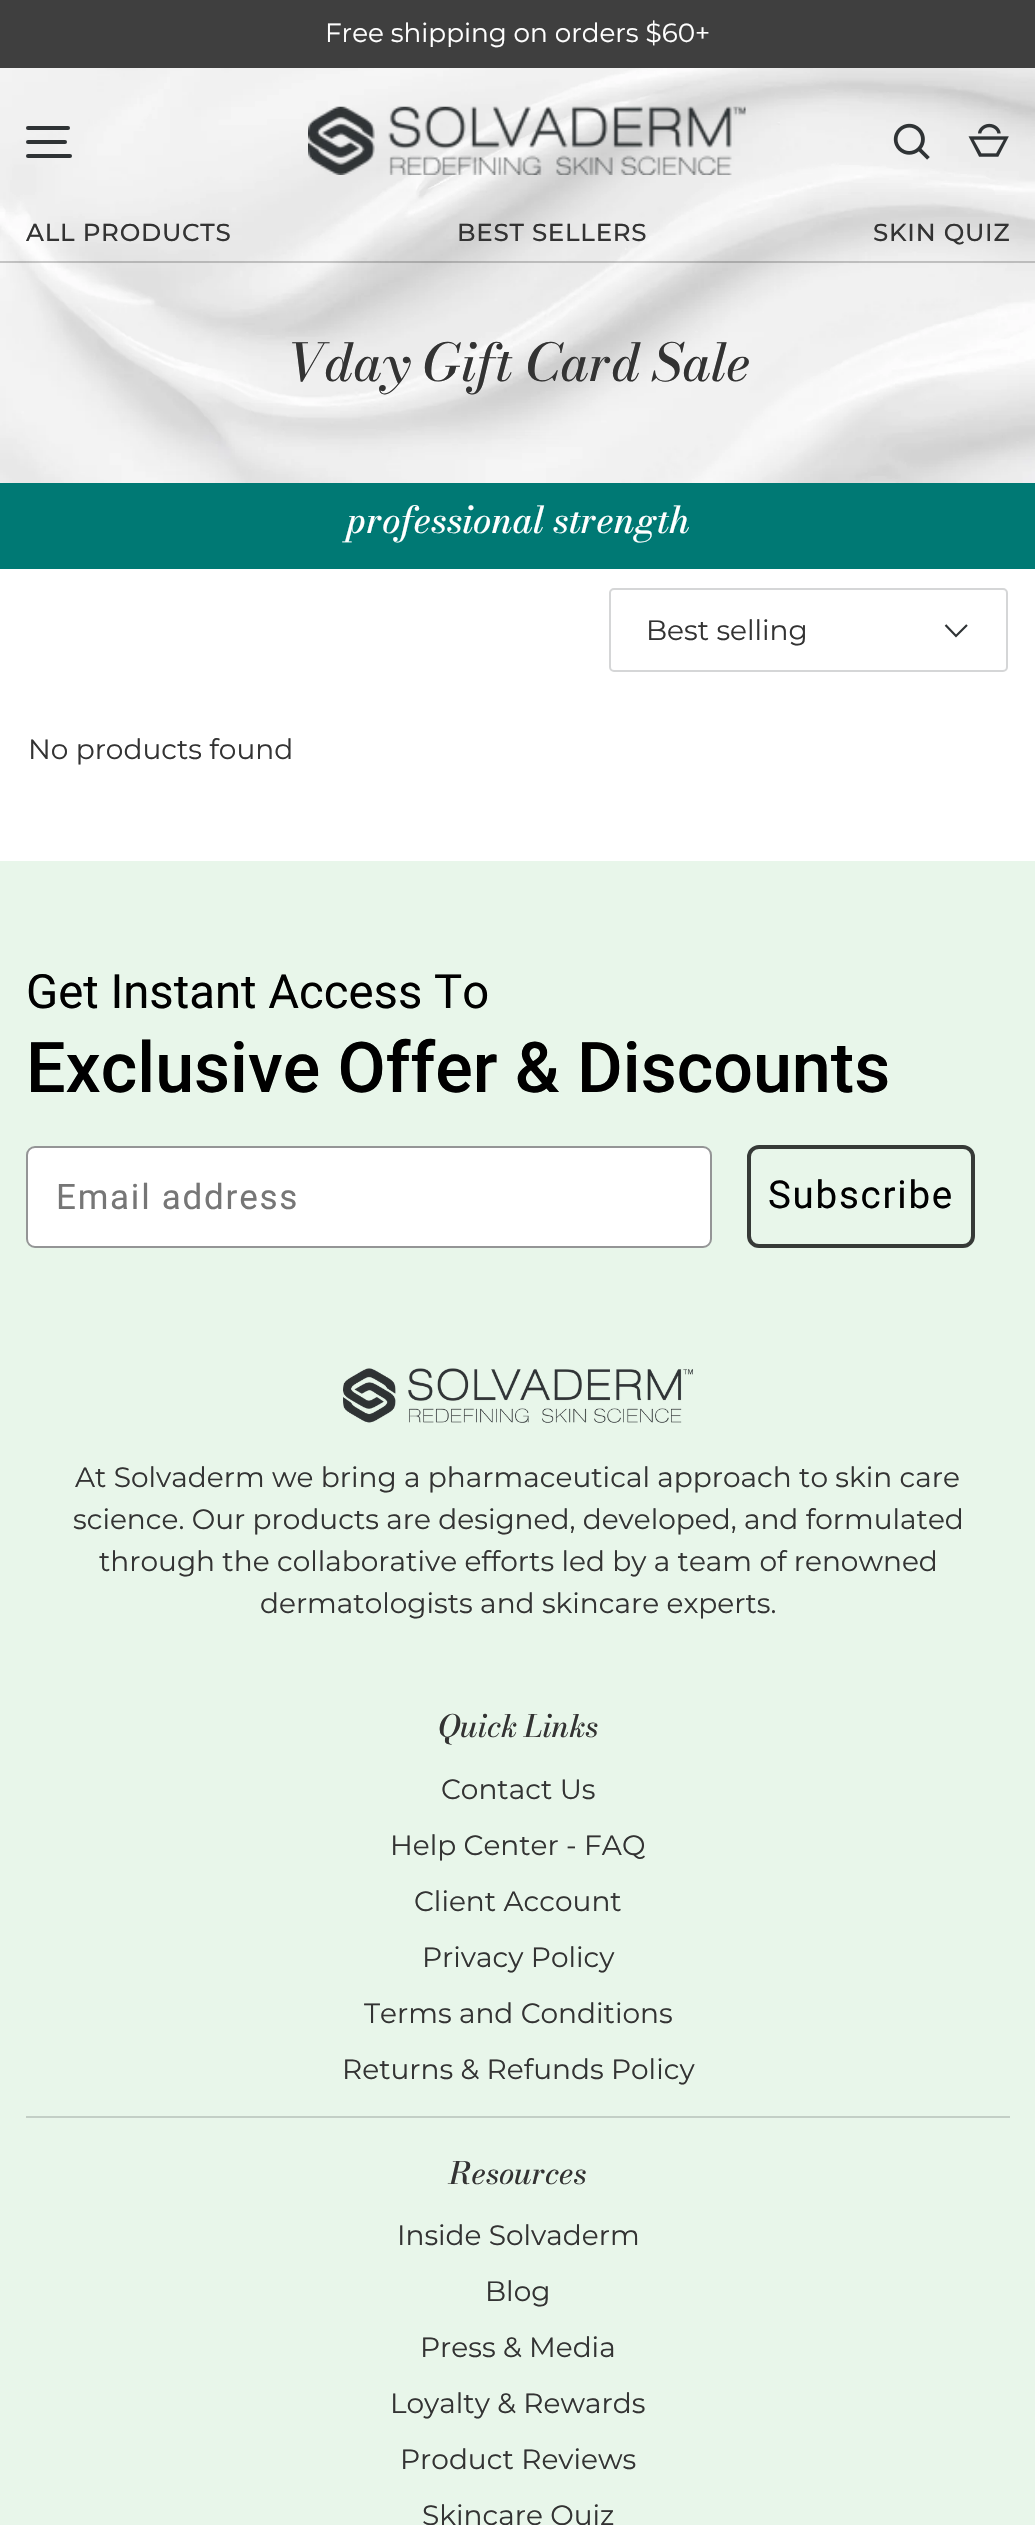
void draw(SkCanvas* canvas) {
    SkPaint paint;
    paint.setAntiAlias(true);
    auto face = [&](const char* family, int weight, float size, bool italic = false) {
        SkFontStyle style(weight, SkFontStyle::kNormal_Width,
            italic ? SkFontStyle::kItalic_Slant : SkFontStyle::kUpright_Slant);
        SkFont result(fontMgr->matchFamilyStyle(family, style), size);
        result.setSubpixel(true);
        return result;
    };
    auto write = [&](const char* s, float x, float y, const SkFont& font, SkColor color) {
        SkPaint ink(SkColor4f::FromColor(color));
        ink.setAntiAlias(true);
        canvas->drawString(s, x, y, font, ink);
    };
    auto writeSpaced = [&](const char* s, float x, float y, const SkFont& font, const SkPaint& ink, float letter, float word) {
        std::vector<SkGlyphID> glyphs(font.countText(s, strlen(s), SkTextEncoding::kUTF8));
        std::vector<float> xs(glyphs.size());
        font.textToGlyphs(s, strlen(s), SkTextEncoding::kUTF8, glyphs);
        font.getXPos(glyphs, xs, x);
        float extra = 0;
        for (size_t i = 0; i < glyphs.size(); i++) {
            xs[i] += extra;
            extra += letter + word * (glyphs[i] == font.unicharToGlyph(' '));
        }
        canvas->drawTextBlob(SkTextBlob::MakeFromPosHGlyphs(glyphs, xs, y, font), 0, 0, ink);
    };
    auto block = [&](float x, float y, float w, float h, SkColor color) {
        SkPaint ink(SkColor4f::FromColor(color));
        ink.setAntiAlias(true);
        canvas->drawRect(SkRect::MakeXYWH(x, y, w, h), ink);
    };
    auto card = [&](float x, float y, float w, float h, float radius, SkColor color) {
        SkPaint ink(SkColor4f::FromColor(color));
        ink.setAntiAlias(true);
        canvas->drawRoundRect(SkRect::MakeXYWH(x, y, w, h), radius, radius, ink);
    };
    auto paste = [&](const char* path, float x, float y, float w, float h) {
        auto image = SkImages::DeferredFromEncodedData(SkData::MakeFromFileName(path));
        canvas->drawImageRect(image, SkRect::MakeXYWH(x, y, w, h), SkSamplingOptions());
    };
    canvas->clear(SK_ColorWHITE);
    block(0, 0, 1035, 68, SkColorSetRGB(63, 63, 63));
    auto kFont1 = face("Montserrat", 400, 26.25f);
    write("Free shipping on orders $60+", 325, 42, kFont1, SK_ColorWHITE);
    paste("pic4.png", 0, 68, 1035, 415);
    card(26, 126, 44, 4, 2, SkColorSetRGB(47, 51, 53));
    card(26, 140, 41, 4, 2, SkColorSetRGB(47, 51, 53));
    card(26, 154, 46, 4, 2, SkColorSetRGB(47, 51, 53));
    paste("pic1.png", 308, 106, 438, 69);
    paste("pic2.png", 893, 123, 37, 37);
    paste("pic3.png", 968, 123, 41, 34);
    block(0, 261, 1035, 2, SkColorSetARGB(59, 35, 35, 35));
    auto kFont2 = face("Montserrat", 500, 24.5f);
    paint.setColor(SkColorSetRGB(51, 51, 51));
    writeSpaced("ALL PRODUCTS", 26, 241, kFont2, paint, 0.75f, 0);
    writeSpaced("BEST SELLERS", 457, 241, kFont2, paint, 0.75f, 0);
    writeSpaced("SKIN QUIZ", 873, 241, kFont2, paint, 0.75f, 0);
    auto kFont3 = face("Bodoni Moda", 500, 51.75f, true);
    write("Vday Gift Card Sale", 286, 381, kFont3, SkColorSetRGB(51, 51, 51));
    block(0, 483, 1035, 86, SkColorSetRGB(0, 121, 116));
    auto kFont4 = face("Bodoni Moda", 500, 36.75f, true);
    write("professional strength", 346, 533, kFont4, SK_ColorWHITE);
    paint.setStyle(SkPaint::kStroke_Style);
    paint.setStrokeWidth(2);
    paint.setColor(SkColorSetRGB(213, 214, 215));
    canvas->drawRoundRect(SkRect::MakeXYWH(610, 589, 397, 82), 4, 4, paint);
    auto kFont5 = face("Montserrat", 400, 28);
    write("Best selling", 646, 640, kFont5, SkColorSetRGB(51, 51, 51));
    paint.setStrokeWidth(2.2f);
    paint.setColor(SkColorSetRGB(47, 51, 53));
    canvas->drawPath(SkPathBuilder().moveTo(967, 625).lineTo(956, 636).lineTo(945.5f, 625).detach(), paint);
    write("No products found", 28, 759, kFont5, SkColorSetRGB(51, 51, 51));
    block(0, 861, 1035, 1664, SkColorSetRGB(232, 246, 234));
    auto kFont6 = face("Roboto", 400, 47.25f);
    write("Get Instant Access To", 26, 1008, kFont6, SK_ColorBLACK);
    auto kFont7 = face("Roboto", 500, 70);
    write("Exclusive Offer & Discounts", 26, 1092, kFont7, SK_ColorBLACK);
    paint.setStyle(SkPaint::kFill_Style);
    paint.setColor(SK_ColorWHITE);
    canvas->drawRoundRect(SkRect::MakeXYWH(27, 1147, 684, 100), 8, 8, paint);
    paint.setStyle(SkPaint::kStroke_Style);
    paint.setStrokeWidth(2);
    paint.setColor(SkColorSetRGB(148, 149, 150));
    canvas->drawRoundRect(SkRect::MakeXYWH(27, 1147, 684, 100), 8, 8, paint);
    auto kFont8 = face("Roboto", 400, 35);
    paint.setStyle(SkPaint::kFill_Style);
    paint.setColor(SkColorSetRGB(118, 118, 118));
    writeSpaced("Email address", 56, 1209, kFont8, paint, 1.75f, 0);
    paint.setStyle(SkPaint::kStroke_Style);
    paint.setStrokeWidth(4);
    paint.setColor(SkColorSetRGB(54, 58, 55));
    canvas->drawRoundRect(SkRect::MakeXYWH(749, 1147, 224, 99), 10, 10, paint);
    auto kFont9 = face("Roboto", 400, 38.5f);
    paint.setStyle(SkPaint::kFill_Style);
    paint.setColor(SK_ColorBLACK);
    writeSpaced("Subscribe", 768, 1208, kFont9, paint, 1.75f, 0);
    paste("pic5.png", 343, 1368, 350, 55);
    write("At Solvaderm we bring a pharmaceutical approach to skin care", 75, 1487, kFont5, SkColorSetRGB(51, 51, 51));
    write("science. Our products are designed, developed, and formulated", 73, 1529, kFont5, SkColorSetRGB(51, 51, 51));
    write("through the collaborative efforts led by a team of renowned", 99, 1571, kFont5, SkColorSetRGB(51, 51, 51));
    write("dermatologists and skincare experts.", 260, 1613, kFont5, SkColorSetRGB(51, 51, 51));
    auto kFont10 = face("Bodoni Moda", 500, 30.75f, true);
    write("Quick Links", 438, 1737, kFont10, SkColorSetRGB(51, 51, 51));
    write("Contact Us", 441, 1799, kFont5, SkColorSetRGB(51, 51, 51));
    write("Help Center - FAQ", 390, 1855, kFont5, SkColorSetRGB(51, 51, 51));
    write("Client Account", 414, 1911, kFont5, SkColorSetRGB(51, 51, 51));
    write("Privacy Policy", 422, 1967, kFont5, SkColorSetRGB(51, 51, 51));
    write("Terms and Conditions", 364, 2023, kFont5, SkColorSetRGB(51, 51, 51));
    write("Returns & Refunds Policy", 342, 2079, kFont5, SkColorSetRGB(51, 51, 51));
    block(26, 2116, 984, 2, SkColorSetRGB(195, 207, 198));
    write("Resources", 449, 2184, kFont10, SkColorSetRGB(51, 51, 51));
    write("Inside Solvaderm", 397, 2245, kFont5, SkColorSetRGB(51, 51, 51));
    write("Blog", 485, 2301, kFont5, SkColorSetRGB(51, 51, 51));
    write("Press & Media", 420, 2357, kFont5, SkColorSetRGB(51, 51, 51));
    write("Loyalty & Rewards", 390, 2413, kFont5, SkColorSetRGB(51, 51, 51));
    write("Product Reviews", 400, 2469, kFont5, SkColorSetRGB(51, 51, 51));
    write("Skincare Quiz", 422, 2525, kFont5, SkColorSetRGB(51, 51, 51));
}
